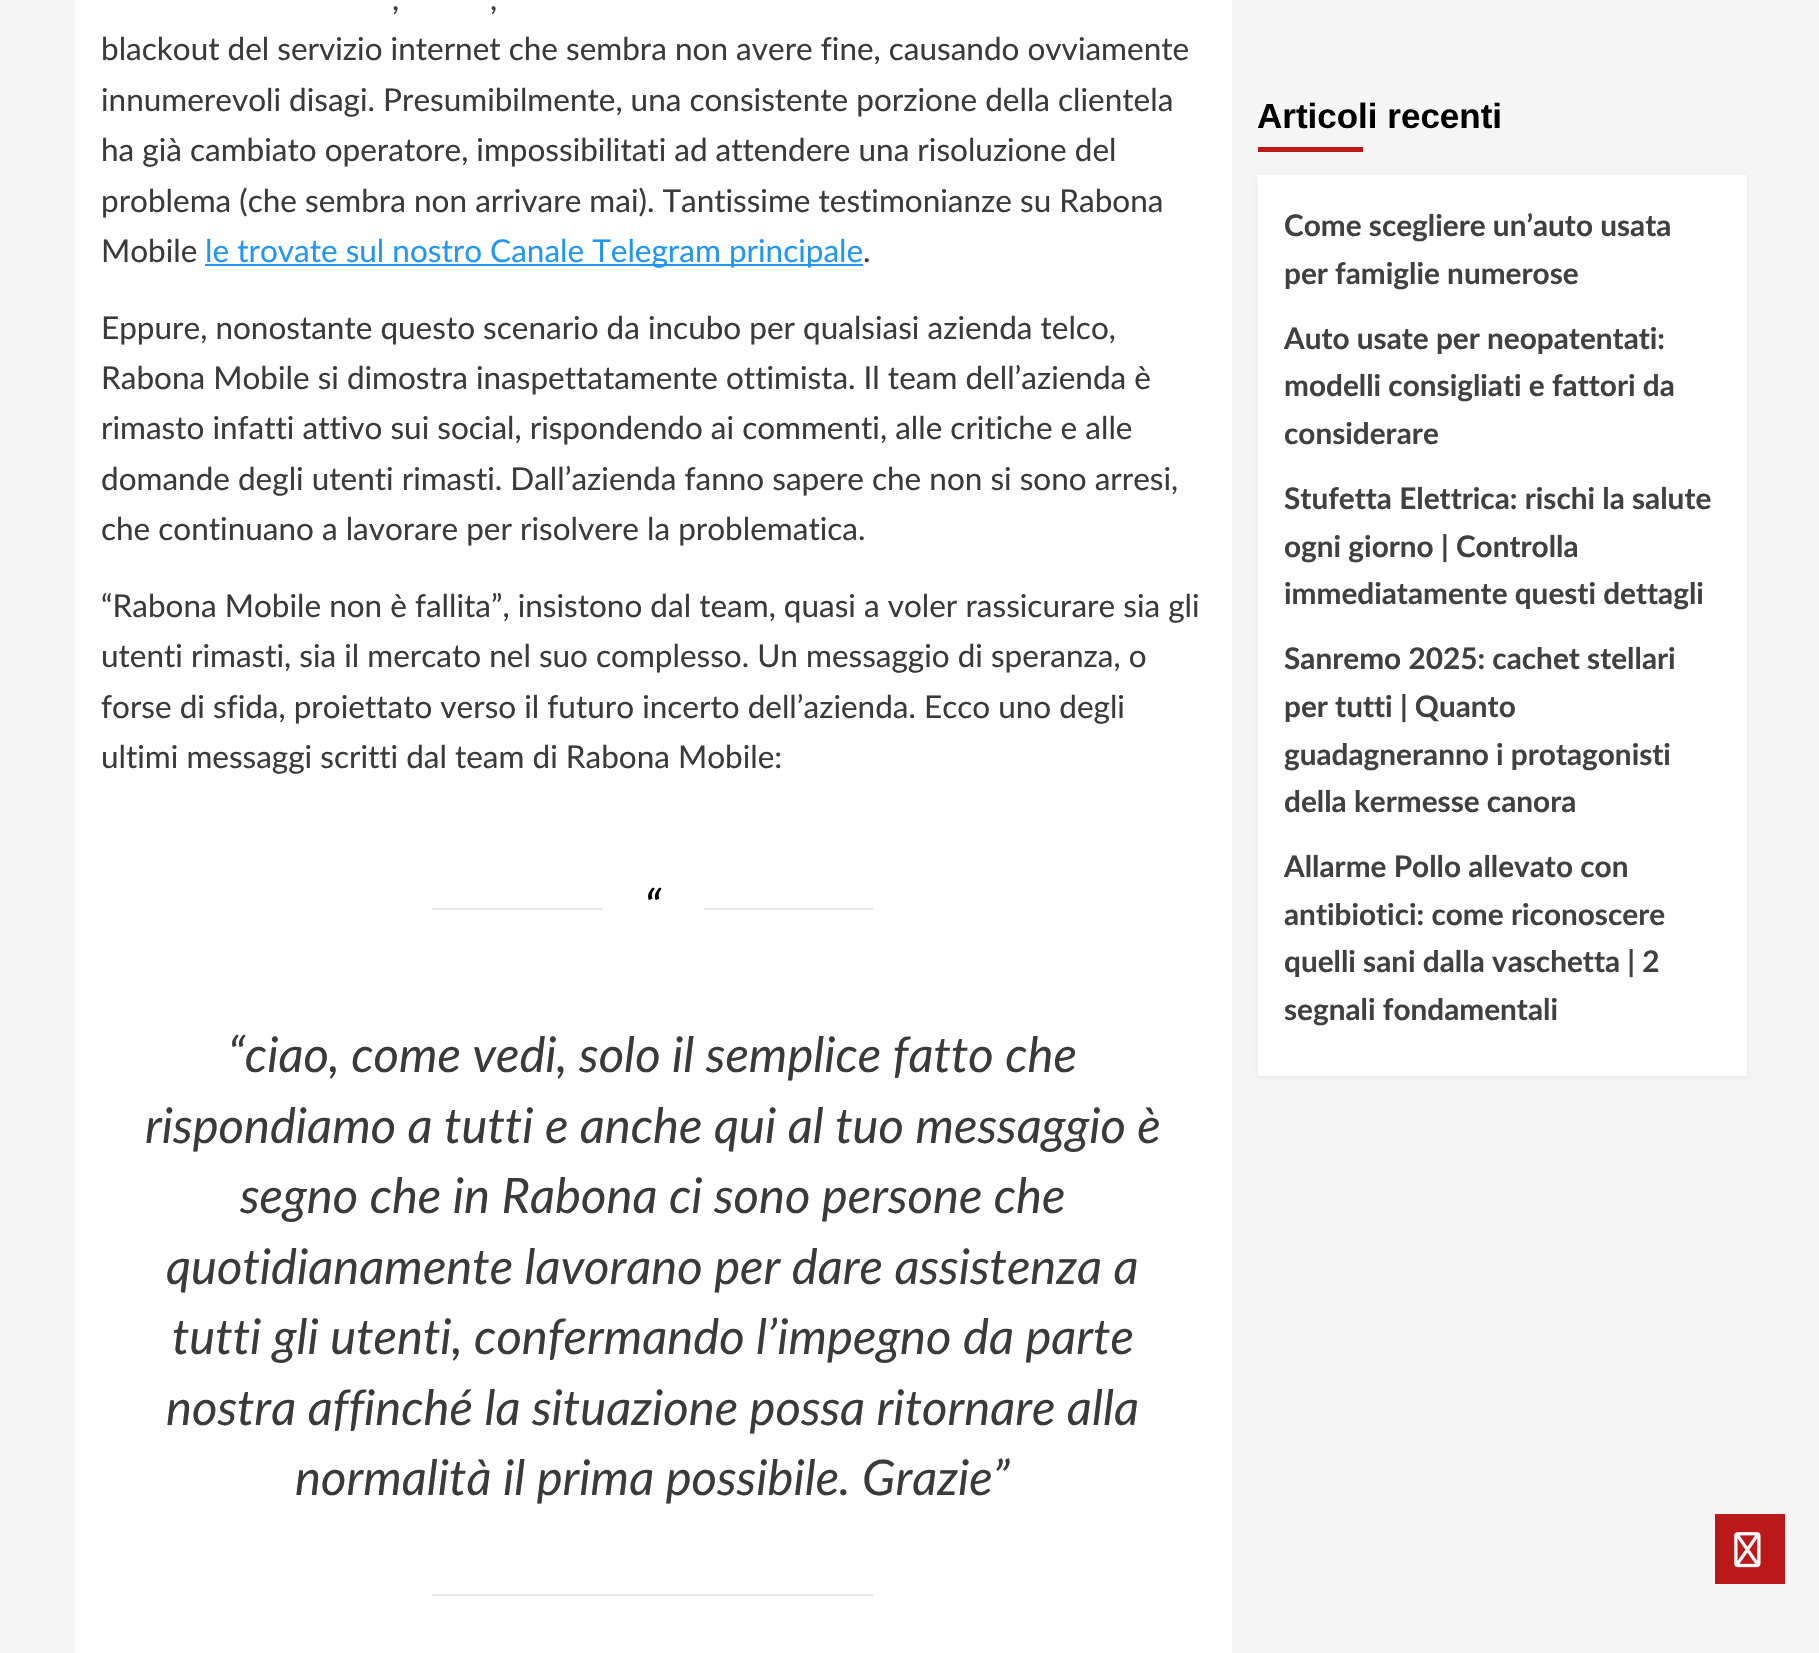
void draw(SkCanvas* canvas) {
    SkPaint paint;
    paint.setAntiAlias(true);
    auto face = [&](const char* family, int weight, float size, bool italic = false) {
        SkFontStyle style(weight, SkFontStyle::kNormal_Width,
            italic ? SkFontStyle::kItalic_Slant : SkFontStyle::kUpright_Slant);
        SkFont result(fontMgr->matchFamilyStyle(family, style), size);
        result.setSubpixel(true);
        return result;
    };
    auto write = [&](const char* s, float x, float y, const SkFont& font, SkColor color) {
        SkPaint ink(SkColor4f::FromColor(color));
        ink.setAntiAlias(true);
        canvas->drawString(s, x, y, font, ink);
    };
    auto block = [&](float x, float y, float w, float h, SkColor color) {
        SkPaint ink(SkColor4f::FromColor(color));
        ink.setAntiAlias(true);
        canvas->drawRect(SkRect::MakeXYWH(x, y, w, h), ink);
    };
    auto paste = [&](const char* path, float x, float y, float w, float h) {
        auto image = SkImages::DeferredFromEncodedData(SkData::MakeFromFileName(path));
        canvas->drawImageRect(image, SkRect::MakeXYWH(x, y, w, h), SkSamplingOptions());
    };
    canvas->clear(SkColorSetRGB(245, 245, 245));
    block(75, 0, 1157, 1653, SK_ColorWHITE);
    auto kFont1 = face("Lato", 400, 31.5f);
    write(",", 392, 10, kFont1, SkColorSetRGB(58, 58, 58));
    write(",", 490, 10, kFont1, SkColorSetRGB(58, 58, 58));
    write("blackout del servizio internet che sembra non avere fine, causando ovviamente", 101, 60, kFont1, SkColorSetRGB(58, 58, 58));
    write("innumerevoli disagi. Presumibilmente, una consistente porzione della clientela", 101, 111, kFont1, SkColorSetRGB(58, 58, 58));
    write("ha già cambiato operatore, impossibilitati ad attendere una risoluzione del", 101, 161, kFont1, SkColorSetRGB(58, 58, 58));
    write("problema (che sembra non arrivare mai). Tantissime testimonianze su Rabona", 101, 212, kFont1, SkColorSetRGB(58, 58, 58));
    write("Mobile", 101, 262, kFont1, SkColorSetRGB(58, 58, 58));
    block(205, 264, 658, 2, SkColorSetRGB(33, 150, 243));
    write("le trovate sul nostro Canale Telegram principale", 205, 262, kFont1, SkColorSetRGB(33, 150, 243));
    write(".", 863, 262, kFont1, SkColorSetRGB(58, 58, 58));
    write("Eppure, nonostante questo scenario da incubo per qualsiasi azienda telco,", 101, 339, kFont1, SkColorSetRGB(58, 58, 58));
    write("Rabona Mobile si dimostra inaspettatamente ottimista. Il team dell’azienda è", 101, 389, kFont1, SkColorSetRGB(58, 58, 58));
    write("rimasto infatti attivo sui social, rispondendo ai commenti, alle critiche e alle", 101, 439, kFont1, SkColorSetRGB(58, 58, 58));
    write("domande degli utenti rimasti. Dall’azienda fanno sapere che non si sono arresi,", 101, 490, kFont1, SkColorSetRGB(58, 58, 58));
    write("che continuano a lavorare per risolvere la problematica.", 101, 540, kFont1, SkColorSetRGB(58, 58, 58));
    write("“Rabona Mobile non è fallita”, insistono dal team, quasi a voler rassicurare sia gli", 101, 617, kFont1, SkColorSetRGB(58, 58, 58));
    write("utenti rimasti, sia il mercato nel suo complesso. Un messaggio di speranza, o", 101, 667, kFont1, SkColorSetRGB(58, 58, 58));
    write("forse di sfida, proiettato verso il futuro incerto dell’azienda. Ecco uno degli", 101, 718, kFont1, SkColorSetRGB(58, 58, 58));
    write("ultimi messaggi scritti dal team di Rabona Mobile:", 101, 768, kFont1, SkColorSetRGB(58, 58, 58));
    block(432, 908, 441, 2, SkColorSetRGB(229, 229, 229));
    block(602, 908, 102, 2, SK_ColorWHITE);
    auto kFont2 = face("Lato", 400, 49, true);
    write("“", 644, 925, kFont2, SK_ColorBLACK);
    block(432, 1594, 441, 2, SkColorSetRGB(229, 229, 229));
    write("“ciao, come vedi, solo il semplice fatto che", 228, 1072, kFont2, SkColorSetRGB(58, 58, 58));
    write("rispondiamo a tutti e anche qui al tuo messaggio è", 145, 1143, kFont2, SkColorSetRGB(58, 58, 58));
    write("segno che in Rabona ci sono persone che", 240, 1213, kFont2, SkColorSetRGB(58, 58, 58));
    write("quotidianamente lavorano per dare assistenza a", 166, 1284, kFont2, SkColorSetRGB(58, 58, 58));
    write("tutti gli utenti, confermando l’impegno da parte", 172, 1354, kFont2, SkColorSetRGB(58, 58, 58));
    write("nostra affinché la situazione possa ritornare alla", 166, 1425, kFont2, SkColorSetRGB(58, 58, 58));
    write("normalità il prima possibile. Grazie”", 295, 1495, kFont2, SkColorSetRGB(58, 58, 58));
    auto kFont3 = face("Liberation Sans", 700, 35);
    write("Articoli recenti", 1257, 128, kFont3, SK_ColorBLACK);
    block(1258, 147, 105, 5, SkColorSetRGB(187, 25, 25));
    paint.setColor(SkColorSetARGB(13, 0, 0, 0));
    paint.setMaskFilter(SkMaskFilter::MakeBlur(kNormal_SkBlurStyle, 2));
    canvas->drawRect(SkRect::MakeXYWH(1258, 177, 489, 901), paint);
    paint.setMaskFilter(nullptr);
    block(1258, 175, 489, 901, SK_ColorWHITE);
    auto kFont4 = face("Lato", 700, 29.75f);
    write("Come scegliere un’auto usata", 1284, 236, kFont4, SkColorSetRGB(64, 64, 64));
    write("per famiglie numerose", 1284, 284, kFont4, SkColorSetRGB(64, 64, 64));
    write("Auto usate per neopatentati:", 1284, 349, kFont4, SkColorSetRGB(64, 64, 64));
    write("modelli consigliati e fattori da", 1284, 396, kFont4, SkColorSetRGB(64, 64, 64));
    write("considerare", 1284, 444, kFont4, SkColorSetRGB(64, 64, 64));
    write("Stufetta Elettrica: rischi la salute", 1284, 509, kFont4, SkColorSetRGB(64, 64, 64));
    write("ogni giorno | Controlla", 1284, 557, kFont4, SkColorSetRGB(64, 64, 64));
    write("immediatamente questi dettagli", 1284, 604, kFont4, SkColorSetRGB(64, 64, 64));
    write("Sanremo 2025: cachet stellari", 1284, 669, kFont4, SkColorSetRGB(64, 64, 64));
    write("per tutti | Quanto", 1284, 717, kFont4, SkColorSetRGB(64, 64, 64));
    write("guadagneranno i protagonisti", 1284, 765, kFont4, SkColorSetRGB(64, 64, 64));
    write("della kermesse canora", 1284, 812, kFont4, SkColorSetRGB(64, 64, 64));
    write("Allarme Pollo allevato con", 1284, 877, kFont4, SkColorSetRGB(64, 64, 64));
    write("antibiotici: come riconoscere", 1284, 925, kFont4, SkColorSetRGB(64, 64, 64));
    write("quelli sani dalla vaschetta | 2", 1284, 972, kFont4, SkColorSetRGB(64, 64, 64));
    write("segnali fondamentali", 1284, 1020, kFont4, SkColorSetRGB(64, 64, 64));
    block(1715, 1514, 70, 70, SkColorSetRGB(187, 25, 25));
    paste("pic1.png", 1734, 1532, 27, 36);
}
